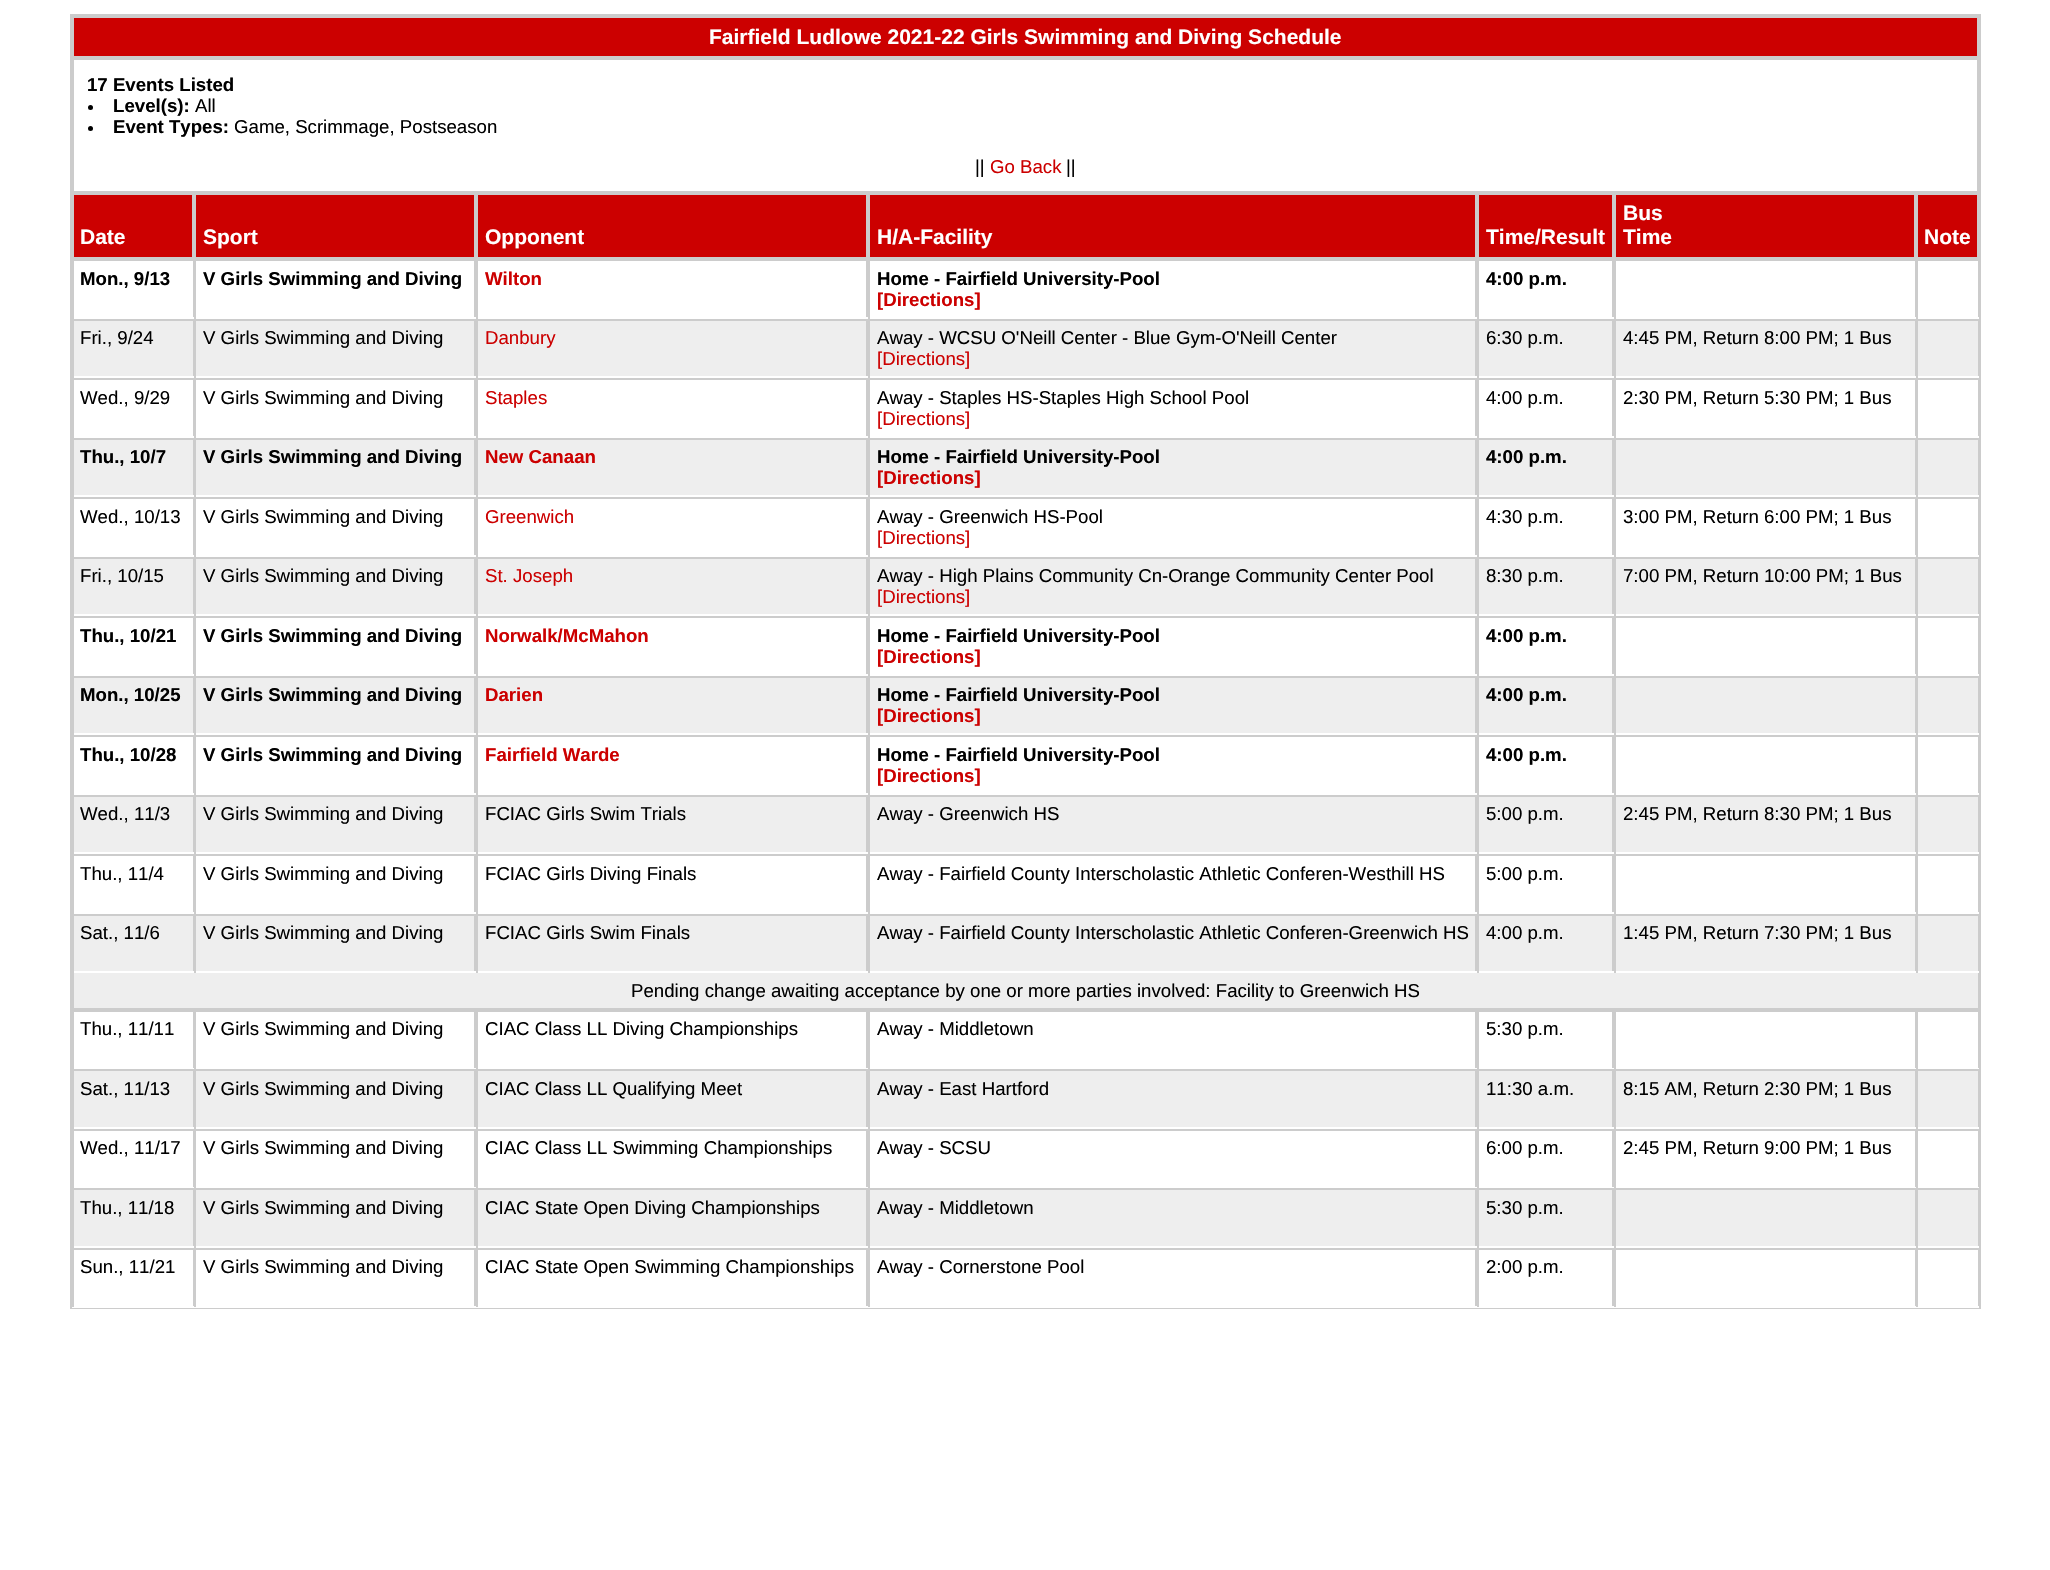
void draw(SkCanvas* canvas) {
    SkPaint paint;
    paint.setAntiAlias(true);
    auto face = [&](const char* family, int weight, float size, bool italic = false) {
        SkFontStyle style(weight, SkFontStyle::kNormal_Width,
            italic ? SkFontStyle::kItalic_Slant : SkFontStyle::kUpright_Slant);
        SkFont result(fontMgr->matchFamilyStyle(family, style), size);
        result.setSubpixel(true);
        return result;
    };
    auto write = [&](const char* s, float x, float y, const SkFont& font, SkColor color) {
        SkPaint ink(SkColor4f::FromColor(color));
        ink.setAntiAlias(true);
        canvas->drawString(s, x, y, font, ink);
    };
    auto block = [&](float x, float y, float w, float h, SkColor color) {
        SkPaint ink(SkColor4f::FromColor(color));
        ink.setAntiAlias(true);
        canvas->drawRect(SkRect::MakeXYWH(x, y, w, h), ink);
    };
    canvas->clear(SK_ColorWHITE);
    block(70, 14, 1911, 1295, SkColorSetRGB(204, 204, 204));
    block(74, 18, 1903, 38, SkColorSetRGB(204, 0, 0));
    auto kFont1 = face("Liberation Sans", 700, 21);
    write("Fairfield Ludlowe 2021-22 Girls Swimming and Diving Schedule", 709, 44, kFont1, SK_ColorWHITE);
    block(74, 60, 1903, 131, SK_ColorWHITE);
    auto kFont2 = face("Liberation Sans", 700, 18.65f);
    write("17 Events Listed", 87, 91, kFont2, SK_ColorBLACK);
    paint.setColor(SK_ColorBLACK);
    canvas->drawCircle(90.5f, 107.5f, 2.5f, paint);
    write("Level(s):", 113, 112, kFont2, SK_ColorBLACK);
    auto kFont3 = face("Liberation Sans", 400, 18.65f);
    write("All", 195, 112, kFont3, SK_ColorBLACK);
    canvas->drawCircle(90.5f, 128.5f, 2.5f, paint);
    write("Event Types:", 113, 133, kFont2, SK_ColorBLACK);
    write("Game, Scrimmage, Postseason", 234, 133, kFont3, SK_ColorBLACK);
    write("||", 975, 173, kFont3, SK_ColorBLACK);
    write("Go Back", 990, 173, kFont3, SkColorSetRGB(204, 0, 0));
    write("||", 1066, 173, kFont3, SK_ColorBLACK);
    block(74, 195, 118, 62, SkColorSetRGB(204, 0, 0));
    write("Date", 80, 244, kFont1, SK_ColorWHITE);
    block(196, 195, 278, 62, SkColorSetRGB(204, 0, 0));
    write("Sport", 203, 244, kFont1, SK_ColorWHITE);
    block(478, 195, 388, 62, SkColorSetRGB(204, 0, 0));
    write("Opponent", 485, 244, kFont1, SK_ColorWHITE);
    block(870, 195, 605, 62, SkColorSetRGB(204, 0, 0));
    write("H/A-Facility", 877, 244, kFont1, SK_ColorWHITE);
    block(1479, 195, 133, 62, SkColorSetRGB(204, 0, 0));
    write("Time/Result", 1486, 244, kFont1, SK_ColorWHITE);
    block(1616, 195, 298, 62, SkColorSetRGB(204, 0, 0));
    write("Bus", 1623, 220, kFont1, SK_ColorWHITE);
    write("Time", 1623, 244, kFont1, SK_ColorWHITE);
    block(1918, 195, 59, 62, SkColorSetRGB(204, 0, 0));
    write("Note", 1924, 244, kFont1, SK_ColorWHITE);
    block(74, 261, 1904, 56, SK_ColorWHITE);
    block(1915, 259, 1, 60, SkColorSetRGB(204, 204, 204));
    block(1614, 317, 365, 2, SK_ColorWHITE);
    block(1614, 259, 2, 60, SkColorSetRGB(204, 204, 204));
    block(193, 259, 1, 60, SkColorSetRGB(204, 204, 204));
    block(72, 317, 122, 2, SK_ColorWHITE);
    block(72, 317, 2, 2, SkColorSetRGB(204, 204, 204));
    write("Mon., 9/13", 80, 285, kFont2, SK_ColorBLACK);
    block(474, 259, 2, 60, SkColorSetRGB(204, 204, 204));
    block(194, 317, 282, 2, SK_ColorWHITE);
    block(194, 259, 2, 60, SkColorSetRGB(204, 204, 204));
    write("V Girls Swimming and Diving", 203, 285, kFont2, SK_ColorBLACK);
    block(866, 259, 2, 60, SkColorSetRGB(204, 204, 204));
    block(476, 317, 392, 2, SK_ColorWHITE);
    block(476, 259, 2, 60, SkColorSetRGB(204, 204, 204));
    write("Wilton", 485, 285, kFont2, SkColorSetRGB(204, 0, 0));
    block(1475, 259, 2, 60, SkColorSetRGB(204, 204, 204));
    block(868, 317, 609, 2, SK_ColorWHITE);
    block(868, 259, 2, 60, SkColorSetRGB(204, 204, 204));
    write("Home - Fairfield University-Pool", 877, 285, kFont2, SK_ColorBLACK);
    write("[Directions]", 877, 306, kFont2, SkColorSetRGB(204, 0, 0));
    block(1612, 259, 2, 60, SkColorSetRGB(204, 204, 204));
    block(1477, 317, 137, 2, SK_ColorWHITE);
    block(1477, 259, 2, 60, SkColorSetRGB(204, 204, 204));
    write("4:00 p.m.", 1486, 285, kFont2, SK_ColorBLACK);
    block(1916, 259, 2, 60, SkColorSetRGB(204, 204, 204));
    block(74, 321, 1904, 55, SkColorSetRGB(238, 238, 238));
    block(193, 319, 1, 59, SkColorSetRGB(204, 204, 204));
    block(72, 376, 122, 2, SK_ColorWHITE);
    block(72, 376, 2, 2, SkColorSetRGB(204, 204, 204));
    write("Fri., 9/24", 80, 344, kFont3, SK_ColorBLACK);
    block(474, 319, 2, 59, SkColorSetRGB(204, 204, 204));
    block(194, 376, 282, 2, SK_ColorWHITE);
    block(194, 319, 2, 59, SkColorSetRGB(204, 204, 204));
    write("V Girls Swimming and Diving", 203, 344, kFont3, SK_ColorBLACK);
    block(866, 319, 2, 59, SkColorSetRGB(204, 204, 204));
    block(476, 376, 392, 2, SK_ColorWHITE);
    block(476, 319, 2, 59, SkColorSetRGB(204, 204, 204));
    write("Danbury", 485, 344, kFont3, SkColorSetRGB(204, 0, 0));
    block(1475, 319, 2, 59, SkColorSetRGB(204, 204, 204));
    block(868, 376, 609, 2, SK_ColorWHITE);
    block(868, 319, 2, 59, SkColorSetRGB(204, 204, 204));
    write("Away - WCSU O'Neill Center - Blue Gym-O'Neill Center", 877, 344, kFont3, SK_ColorBLACK);
    write("[Directions]", 877, 365, kFont3, SkColorSetRGB(204, 0, 0));
    block(1612, 319, 2, 59, SkColorSetRGB(204, 204, 204));
    block(1477, 376, 137, 2, SK_ColorWHITE);
    block(1477, 319, 2, 59, SkColorSetRGB(204, 204, 204));
    write("6:30 p.m.", 1486, 344, kFont3, SK_ColorBLACK);
    block(1915, 319, 1, 59, SkColorSetRGB(204, 204, 204));
    block(1614, 376, 365, 2, SK_ColorWHITE);
    block(1614, 319, 2, 59, SkColorSetRGB(204, 204, 204));
    write("4:45 PM, Return 8:00 PM; 1 Bus", 1623, 344, kFont3, SK_ColorBLACK);
    block(1916, 319, 2, 59, SkColorSetRGB(204, 204, 204));
    block(74, 380, 1904, 56, SK_ColorWHITE);
    block(193, 378, 1, 60, SkColorSetRGB(204, 204, 204));
    block(72, 436, 122, 2, SK_ColorWHITE);
    block(72, 436, 2, 2, SkColorSetRGB(204, 204, 204));
    write("Wed., 9/29", 80, 404, kFont3, SK_ColorBLACK);
    block(474, 378, 2, 60, SkColorSetRGB(204, 204, 204));
    block(194, 436, 282, 2, SK_ColorWHITE);
    block(194, 378, 2, 60, SkColorSetRGB(204, 204, 204));
    write("V Girls Swimming and Diving", 203, 404, kFont3, SK_ColorBLACK);
    block(866, 378, 2, 60, SkColorSetRGB(204, 204, 204));
    block(476, 436, 392, 2, SK_ColorWHITE);
    block(476, 378, 2, 60, SkColorSetRGB(204, 204, 204));
    write("Staples", 485, 404, kFont3, SkColorSetRGB(204, 0, 0));
    block(1475, 378, 2, 60, SkColorSetRGB(204, 204, 204));
    block(868, 436, 609, 2, SK_ColorWHITE);
    block(868, 378, 2, 60, SkColorSetRGB(204, 204, 204));
    write("Away - Staples HS-Staples High School Pool", 877, 404, kFont3, SK_ColorBLACK);
    write("[Directions]", 877, 425, kFont3, SkColorSetRGB(204, 0, 0));
    block(1612, 378, 2, 60, SkColorSetRGB(204, 204, 204));
    block(1477, 436, 137, 2, SK_ColorWHITE);
    block(1477, 378, 2, 60, SkColorSetRGB(204, 204, 204));
    write("4:00 p.m.", 1486, 404, kFont3, SK_ColorBLACK);
    block(1915, 378, 1, 60, SkColorSetRGB(204, 204, 204));
    block(1614, 436, 365, 2, SK_ColorWHITE);
    block(1614, 378, 2, 60, SkColorSetRGB(204, 204, 204));
    write("2:30 PM, Return 5:30 PM; 1 Bus", 1623, 404, kFont3, SK_ColorBLACK);
    block(1916, 378, 2, 60, SkColorSetRGB(204, 204, 204));
    block(74, 440, 1904, 55, SkColorSetRGB(238, 238, 238));
    block(1915, 438, 1, 59, SkColorSetRGB(204, 204, 204));
    block(1614, 495, 365, 2, SK_ColorWHITE);
    block(1614, 438, 2, 59, SkColorSetRGB(204, 204, 204));
    block(193, 438, 1, 59, SkColorSetRGB(204, 204, 204));
    block(72, 495, 122, 2, SK_ColorWHITE);
    block(72, 495, 2, 2, SkColorSetRGB(204, 204, 204));
    write("Thu., 10/7", 80, 463, kFont2, SK_ColorBLACK);
    block(474, 438, 2, 59, SkColorSetRGB(204, 204, 204));
    block(194, 495, 282, 2, SK_ColorWHITE);
    block(194, 438, 2, 59, SkColorSetRGB(204, 204, 204));
    write("V Girls Swimming and Diving", 203, 463, kFont2, SK_ColorBLACK);
    block(866, 438, 2, 59, SkColorSetRGB(204, 204, 204));
    block(476, 495, 392, 2, SK_ColorWHITE);
    block(476, 438, 2, 59, SkColorSetRGB(204, 204, 204));
    write("New Canaan", 485, 463, kFont2, SkColorSetRGB(204, 0, 0));
    block(1475, 438, 2, 59, SkColorSetRGB(204, 204, 204));
    block(868, 495, 609, 2, SK_ColorWHITE);
    block(868, 438, 2, 59, SkColorSetRGB(204, 204, 204));
    write("Home - Fairfield University-Pool", 877, 463, kFont2, SK_ColorBLACK);
    write("[Directions]", 877, 484, kFont2, SkColorSetRGB(204, 0, 0));
    block(1612, 438, 2, 59, SkColorSetRGB(204, 204, 204));
    block(1477, 495, 137, 2, SK_ColorWHITE);
    block(1477, 438, 2, 59, SkColorSetRGB(204, 204, 204));
    write("4:00 p.m.", 1486, 463, kFont2, SK_ColorBLACK);
    block(1916, 438, 2, 59, SkColorSetRGB(204, 204, 204));
    block(74, 499, 1904, 56, SK_ColorWHITE);
    block(193, 497, 1, 60, SkColorSetRGB(204, 204, 204));
    block(72, 555, 122, 2, SK_ColorWHITE);
    block(72, 555, 2, 2, SkColorSetRGB(204, 204, 204));
    write("Wed., 10/13", 80, 523, kFont3, SK_ColorBLACK);
    block(474, 497, 2, 60, SkColorSetRGB(204, 204, 204));
    block(194, 555, 282, 2, SK_ColorWHITE);
    block(194, 497, 2, 60, SkColorSetRGB(204, 204, 204));
    write("V Girls Swimming and Diving", 203, 523, kFont3, SK_ColorBLACK);
    block(866, 497, 2, 60, SkColorSetRGB(204, 204, 204));
    block(476, 555, 392, 2, SK_ColorWHITE);
    block(476, 497, 2, 60, SkColorSetRGB(204, 204, 204));
    write("Greenwich", 485, 523, kFont3, SkColorSetRGB(204, 0, 0));
    block(1475, 497, 2, 60, SkColorSetRGB(204, 204, 204));
    block(868, 555, 609, 2, SK_ColorWHITE);
    block(868, 497, 2, 60, SkColorSetRGB(204, 204, 204));
    write("Away - Greenwich HS-Pool", 877, 523, kFont3, SK_ColorBLACK);
    write("[Directions]", 877, 544, kFont3, SkColorSetRGB(204, 0, 0));
    block(1612, 497, 2, 60, SkColorSetRGB(204, 204, 204));
    block(1477, 555, 137, 2, SK_ColorWHITE);
    block(1477, 497, 2, 60, SkColorSetRGB(204, 204, 204));
    write("4:30 p.m.", 1486, 523, kFont3, SK_ColorBLACK);
    block(1915, 497, 1, 60, SkColorSetRGB(204, 204, 204));
    block(1614, 555, 365, 2, SK_ColorWHITE);
    block(1614, 497, 2, 60, SkColorSetRGB(204, 204, 204));
    write("3:00 PM, Return 6:00 PM; 1 Bus", 1623, 523, kFont3, SK_ColorBLACK);
    block(1916, 497, 2, 60, SkColorSetRGB(204, 204, 204));
    block(74, 559, 1904, 55, SkColorSetRGB(238, 238, 238));
    block(193, 557, 1, 59, SkColorSetRGB(204, 204, 204));
    block(72, 614, 122, 2, SK_ColorWHITE);
    block(72, 614, 2, 2, SkColorSetRGB(204, 204, 204));
    write("Fri., 10/15", 80, 582, kFont3, SK_ColorBLACK);
    block(474, 557, 2, 59, SkColorSetRGB(204, 204, 204));
    block(194, 614, 282, 2, SK_ColorWHITE);
    block(194, 557, 2, 59, SkColorSetRGB(204, 204, 204));
    write("V Girls Swimming and Diving", 203, 582, kFont3, SK_ColorBLACK);
    block(866, 557, 2, 59, SkColorSetRGB(204, 204, 204));
    block(476, 614, 392, 2, SK_ColorWHITE);
    block(476, 557, 2, 59, SkColorSetRGB(204, 204, 204));
    write("St. Joseph", 485, 582, kFont3, SkColorSetRGB(204, 0, 0));
    block(1475, 557, 2, 59, SkColorSetRGB(204, 204, 204));
    block(868, 614, 609, 2, SK_ColorWHITE);
    block(868, 557, 2, 59, SkColorSetRGB(204, 204, 204));
    write("Away - High Plains Community Cn-Orange Community Center Pool", 877, 582, kFont3, SK_ColorBLACK);
    write("[Directions]", 877, 603, kFont3, SkColorSetRGB(204, 0, 0));
    block(1612, 557, 2, 59, SkColorSetRGB(204, 204, 204));
    block(1477, 614, 137, 2, SK_ColorWHITE);
    block(1477, 557, 2, 59, SkColorSetRGB(204, 204, 204));
    write("8:30 p.m.", 1486, 582, kFont3, SK_ColorBLACK);
    block(1915, 557, 1, 59, SkColorSetRGB(204, 204, 204));
    block(1614, 614, 365, 2, SK_ColorWHITE);
    block(1614, 557, 2, 59, SkColorSetRGB(204, 204, 204));
    write("7:00 PM, Return 10:00 PM; 1 Bus", 1623, 582, kFont3, SK_ColorBLACK);
    block(1916, 557, 2, 59, SkColorSetRGB(204, 204, 204));
    block(74, 618, 1904, 56, SK_ColorWHITE);
    block(1915, 616, 1, 60, SkColorSetRGB(204, 204, 204));
    block(1614, 674, 365, 2, SK_ColorWHITE);
    block(1614, 616, 2, 60, SkColorSetRGB(204, 204, 204));
    block(193, 616, 1, 60, SkColorSetRGB(204, 204, 204));
    block(72, 674, 122, 2, SK_ColorWHITE);
    block(72, 674, 2, 2, SkColorSetRGB(204, 204, 204));
    write("Thu., 10/21", 80, 642, kFont2, SK_ColorBLACK);
    block(474, 616, 2, 60, SkColorSetRGB(204, 204, 204));
    block(194, 674, 282, 2, SK_ColorWHITE);
    block(194, 616, 2, 60, SkColorSetRGB(204, 204, 204));
    write("V Girls Swimming and Diving", 203, 642, kFont2, SK_ColorBLACK);
    block(866, 616, 2, 60, SkColorSetRGB(204, 204, 204));
    block(476, 674, 392, 2, SK_ColorWHITE);
    block(476, 616, 2, 60, SkColorSetRGB(204, 204, 204));
    write("Norwalk/McMahon", 485, 642, kFont2, SkColorSetRGB(204, 0, 0));
    block(1475, 616, 2, 60, SkColorSetRGB(204, 204, 204));
    block(868, 674, 609, 2, SK_ColorWHITE);
    block(868, 616, 2, 60, SkColorSetRGB(204, 204, 204));
    write("Home - Fairfield University-Pool", 877, 642, kFont2, SK_ColorBLACK);
    write("[Directions]", 877, 663, kFont2, SkColorSetRGB(204, 0, 0));
    block(1612, 616, 2, 60, SkColorSetRGB(204, 204, 204));
    block(1477, 674, 137, 2, SK_ColorWHITE);
    block(1477, 616, 2, 60, SkColorSetRGB(204, 204, 204));
    write("4:00 p.m.", 1486, 642, kFont2, SK_ColorBLACK);
    block(1916, 616, 2, 60, SkColorSetRGB(204, 204, 204));
    block(74, 678, 1904, 55, SkColorSetRGB(238, 238, 238));
    block(1915, 676, 1, 59, SkColorSetRGB(204, 204, 204));
    block(1614, 733, 365, 2, SK_ColorWHITE);
    block(1614, 676, 2, 59, SkColorSetRGB(204, 204, 204));
    block(193, 676, 1, 59, SkColorSetRGB(204, 204, 204));
    block(72, 733, 122, 2, SK_ColorWHITE);
    block(72, 733, 2, 2, SkColorSetRGB(204, 204, 204));
    write("Mon., 10/25", 80, 701, kFont2, SK_ColorBLACK);
    block(474, 676, 2, 59, SkColorSetRGB(204, 204, 204));
    block(194, 733, 282, 2, SK_ColorWHITE);
    block(194, 676, 2, 59, SkColorSetRGB(204, 204, 204));
    write("V Girls Swimming and Diving", 203, 701, kFont2, SK_ColorBLACK);
    block(866, 676, 2, 59, SkColorSetRGB(204, 204, 204));
    block(476, 733, 392, 2, SK_ColorWHITE);
    block(476, 676, 2, 59, SkColorSetRGB(204, 204, 204));
    write("Darien", 485, 701, kFont2, SkColorSetRGB(204, 0, 0));
    block(1475, 676, 2, 59, SkColorSetRGB(204, 204, 204));
    block(868, 733, 609, 2, SK_ColorWHITE);
    block(868, 676, 2, 59, SkColorSetRGB(204, 204, 204));
    write("Home - Fairfield University-Pool", 877, 701, kFont2, SK_ColorBLACK);
    write("[Directions]", 877, 722, kFont2, SkColorSetRGB(204, 0, 0));
    block(1612, 676, 2, 59, SkColorSetRGB(204, 204, 204));
    block(1477, 733, 137, 2, SK_ColorWHITE);
    block(1477, 676, 2, 59, SkColorSetRGB(204, 204, 204));
    write("4:00 p.m.", 1486, 701, kFont2, SK_ColorBLACK);
    block(1916, 676, 2, 59, SkColorSetRGB(204, 204, 204));
    block(74, 737, 1904, 56, SK_ColorWHITE);
    block(1915, 735, 1, 60, SkColorSetRGB(204, 204, 204));
    block(1614, 793, 365, 2, SK_ColorWHITE);
    block(1614, 735, 2, 60, SkColorSetRGB(204, 204, 204));
    block(193, 735, 1, 60, SkColorSetRGB(204, 204, 204));
    block(72, 793, 122, 2, SK_ColorWHITE);
    block(72, 793, 2, 2, SkColorSetRGB(204, 204, 204));
    write("Thu., 10/28", 80, 761, kFont2, SK_ColorBLACK);
    block(474, 735, 2, 60, SkColorSetRGB(204, 204, 204));
    block(194, 793, 282, 2, SK_ColorWHITE);
    block(194, 735, 2, 60, SkColorSetRGB(204, 204, 204));
    write("V Girls Swimming and Diving", 203, 761, kFont2, SK_ColorBLACK);
    block(866, 735, 2, 60, SkColorSetRGB(204, 204, 204));
    block(476, 793, 392, 2, SK_ColorWHITE);
    block(476, 735, 2, 60, SkColorSetRGB(204, 204, 204));
    write("Fairfield Warde", 485, 761, kFont2, SkColorSetRGB(204, 0, 0));
    block(1475, 735, 2, 60, SkColorSetRGB(204, 204, 204));
    block(868, 793, 609, 2, SK_ColorWHITE);
    block(868, 735, 2, 60, SkColorSetRGB(204, 204, 204));
    write("Home - Fairfield University-Pool", 877, 761, kFont2, SK_ColorBLACK);
    write("[Directions]", 877, 782, kFont2, SkColorSetRGB(204, 0, 0));
    block(1612, 735, 2, 60, SkColorSetRGB(204, 204, 204));
    block(1477, 793, 137, 2, SK_ColorWHITE);
    block(1477, 735, 2, 60, SkColorSetRGB(204, 204, 204));
    write("4:00 p.m.", 1486, 761, kFont2, SK_ColorBLACK);
    block(1916, 735, 2, 60, SkColorSetRGB(204, 204, 204));
    block(74, 797, 1904, 55, SkColorSetRGB(238, 238, 238));
    block(193, 795, 1, 59, SkColorSetRGB(204, 204, 204));
    block(72, 852, 122, 2, SK_ColorWHITE);
    block(72, 852, 2, 2, SkColorSetRGB(204, 204, 204));
    write("Wed., 11/3", 80, 820, kFont3, SK_ColorBLACK);
    block(474, 795, 2, 59, SkColorSetRGB(204, 204, 204));
    block(194, 852, 282, 2, SK_ColorWHITE);
    block(194, 795, 2, 59, SkColorSetRGB(204, 204, 204));
    write("V Girls Swimming and Diving", 203, 820, kFont3, SK_ColorBLACK);
    block(866, 795, 2, 59, SkColorSetRGB(204, 204, 204));
    block(476, 852, 392, 2, SK_ColorWHITE);
    block(476, 795, 2, 59, SkColorSetRGB(204, 204, 204));
    write("FCIAC Girls Swim Trials", 485, 820, kFont3, SK_ColorBLACK);
    block(1475, 795, 2, 59, SkColorSetRGB(204, 204, 204));
    block(868, 852, 609, 2, SK_ColorWHITE);
    block(868, 795, 2, 59, SkColorSetRGB(204, 204, 204));
    write("Away - Greenwich HS", 877, 820, kFont3, SK_ColorBLACK);
    block(1612, 795, 2, 59, SkColorSetRGB(204, 204, 204));
    block(1477, 852, 137, 2, SK_ColorWHITE);
    block(1477, 795, 2, 59, SkColorSetRGB(204, 204, 204));
    write("5:00 p.m.", 1486, 820, kFont3, SK_ColorBLACK);
    block(1915, 795, 1, 59, SkColorSetRGB(204, 204, 204));
    block(1614, 852, 365, 2, SK_ColorWHITE);
    block(1614, 795, 2, 59, SkColorSetRGB(204, 204, 204));
    write("2:45 PM, Return 8:30 PM; 1 Bus", 1623, 820, kFont3, SK_ColorBLACK);
    block(1916, 795, 2, 59, SkColorSetRGB(204, 204, 204));
    block(74, 856, 1904, 56, SK_ColorWHITE);
    block(1915, 854, 1, 60, SkColorSetRGB(204, 204, 204));
    block(1614, 912, 365, 2, SK_ColorWHITE);
    block(1614, 854, 2, 60, SkColorSetRGB(204, 204, 204));
    block(193, 854, 1, 60, SkColorSetRGB(204, 204, 204));
    block(72, 912, 122, 2, SK_ColorWHITE);
    block(72, 912, 2, 2, SkColorSetRGB(204, 204, 204));
    write("Thu., 11/4", 80, 880, kFont3, SK_ColorBLACK);
    block(474, 854, 2, 60, SkColorSetRGB(204, 204, 204));
    block(194, 912, 282, 2, SK_ColorWHITE);
    block(194, 854, 2, 60, SkColorSetRGB(204, 204, 204));
    write("V Girls Swimming and Diving", 203, 880, kFont3, SK_ColorBLACK);
    block(866, 854, 2, 60, SkColorSetRGB(204, 204, 204));
    block(476, 912, 392, 2, SK_ColorWHITE);
    block(476, 854, 2, 60, SkColorSetRGB(204, 204, 204));
    write("FCIAC Girls Diving Finals", 485, 880, kFont3, SK_ColorBLACK);
    block(1475, 854, 2, 60, SkColorSetRGB(204, 204, 204));
    block(868, 912, 609, 2, SK_ColorWHITE);
    block(868, 854, 2, 60, SkColorSetRGB(204, 204, 204));
    write("Away - Fairfield County Interscholastic Athletic Conferen-Westhill HS", 877, 880, kFont3, SK_ColorBLACK);
    block(1612, 854, 2, 60, SkColorSetRGB(204, 204, 204));
    block(1477, 912, 137, 2, SK_ColorWHITE);
    block(1477, 854, 2, 60, SkColorSetRGB(204, 204, 204));
    write("5:00 p.m.", 1486, 880, kFont3, SK_ColorBLACK);
    block(1916, 854, 2, 60, SkColorSetRGB(204, 204, 204));
    block(74, 916, 1904, 55, SkColorSetRGB(238, 238, 238));
    block(193, 914, 1, 59, SkColorSetRGB(204, 204, 204));
    block(72, 971, 122, 2, SK_ColorWHITE);
    block(72, 971, 2, 2, SkColorSetRGB(204, 204, 204));
    write("Sat., 11/6", 80, 939, kFont3, SK_ColorBLACK);
    block(474, 914, 2, 59, SkColorSetRGB(204, 204, 204));
    block(194, 971, 282, 2, SK_ColorWHITE);
    block(194, 914, 2, 59, SkColorSetRGB(204, 204, 204));
    write("V Girls Swimming and Diving", 203, 939, kFont3, SK_ColorBLACK);
    block(866, 914, 2, 59, SkColorSetRGB(204, 204, 204));
    block(476, 971, 392, 2, SK_ColorWHITE);
    block(476, 914, 2, 59, SkColorSetRGB(204, 204, 204));
    write("FCIAC Girls Swim Finals", 485, 939, kFont3, SK_ColorBLACK);
    block(1475, 914, 2, 59, SkColorSetRGB(204, 204, 204));
    block(868, 971, 609, 2, SK_ColorWHITE);
    block(868, 914, 2, 59, SkColorSetRGB(204, 204, 204));
    write("Away - Fairfield County Interscholastic Athletic Conferen-Greenwich HS", 877, 939, kFont3, SK_ColorBLACK);
    block(1612, 914, 2, 59, SkColorSetRGB(204, 204, 204));
    block(1477, 971, 137, 2, SK_ColorWHITE);
    block(1477, 914, 2, 59, SkColorSetRGB(204, 204, 204));
    write("4:00 p.m.", 1486, 939, kFont3, SK_ColorBLACK);
    block(1915, 914, 1, 59, SkColorSetRGB(204, 204, 204));
    block(1614, 971, 365, 2, SK_ColorWHITE);
    block(1614, 914, 2, 59, SkColorSetRGB(204, 204, 204));
    write("1:45 PM, Return 7:30 PM; 1 Bus", 1623, 939, kFont3, SK_ColorBLACK);
    block(1916, 914, 2, 59, SkColorSetRGB(204, 204, 204));
    block(74, 973, 1904, 35, SkColorSetRGB(238, 238, 238));
    write("Pending change awaiting acceptance by one or more parties involved: Facility to Greenwich HS", 631, 997, kFont3, SK_ColorBLACK);
    block(74, 1012, 1904, 56, SK_ColorWHITE);
    block(1915, 1010, 1, 59, SkColorSetRGB(204, 204, 204));
    block(1614, 1068, 365, 1, SK_ColorWHITE);
    block(1614, 1010, 2, 59, SkColorSetRGB(204, 204, 204));
    block(193, 1010, 1, 59, SkColorSetRGB(204, 204, 204));
    block(72, 1068, 122, 1, SK_ColorWHITE);
    block(72, 1068, 2, 1, SkColorSetRGB(204, 204, 204));
    write("Thu., 11/11", 80, 1035, kFont3, SK_ColorBLACK);
    block(474, 1010, 2, 59, SkColorSetRGB(204, 204, 204));
    block(194, 1068, 282, 1, SK_ColorWHITE);
    block(194, 1010, 2, 59, SkColorSetRGB(204, 204, 204));
    write("V Girls Swimming and Diving", 203, 1035, kFont3, SK_ColorBLACK);
    block(866, 1010, 2, 59, SkColorSetRGB(204, 204, 204));
    block(476, 1068, 392, 1, SK_ColorWHITE);
    block(476, 1010, 2, 59, SkColorSetRGB(204, 204, 204));
    write("CIAC Class LL Diving Championships", 485, 1035, kFont3, SK_ColorBLACK);
    block(1475, 1010, 2, 59, SkColorSetRGB(204, 204, 204));
    block(868, 1068, 609, 1, SK_ColorWHITE);
    block(868, 1010, 2, 59, SkColorSetRGB(204, 204, 204));
    write("Away - Middletown", 877, 1035, kFont3, SK_ColorBLACK);
    block(1612, 1010, 2, 59, SkColorSetRGB(204, 204, 204));
    block(1477, 1068, 137, 1, SK_ColorWHITE);
    block(1477, 1010, 2, 59, SkColorSetRGB(204, 204, 204));
    write("5:30 p.m.", 1486, 1035, kFont3, SK_ColorBLACK);
    block(1916, 1010, 2, 59, SkColorSetRGB(204, 204, 204));
    block(74, 1071, 1904, 56, SkColorSetRGB(238, 238, 238));
    block(193, 1069, 1, 60, SkColorSetRGB(204, 204, 204));
    block(72, 1127, 122, 2, SK_ColorWHITE);
    block(72, 1127, 2, 2, SkColorSetRGB(204, 204, 204));
    write("Sat., 11/13", 80, 1095, kFont3, SK_ColorBLACK);
    block(474, 1069, 2, 60, SkColorSetRGB(204, 204, 204));
    block(194, 1127, 282, 2, SK_ColorWHITE);
    block(194, 1069, 2, 60, SkColorSetRGB(204, 204, 204));
    write("V Girls Swimming and Diving", 203, 1095, kFont3, SK_ColorBLACK);
    block(866, 1069, 2, 60, SkColorSetRGB(204, 204, 204));
    block(476, 1127, 392, 2, SK_ColorWHITE);
    block(476, 1069, 2, 60, SkColorSetRGB(204, 204, 204));
    write("CIAC Class LL Qualifying Meet", 485, 1095, kFont3, SK_ColorBLACK);
    block(1475, 1069, 2, 60, SkColorSetRGB(204, 204, 204));
    block(868, 1127, 609, 2, SK_ColorWHITE);
    block(868, 1069, 2, 60, SkColorSetRGB(204, 204, 204));
    write("Away - East Hartford", 877, 1095, kFont3, SK_ColorBLACK);
    block(1612, 1069, 2, 60, SkColorSetRGB(204, 204, 204));
    block(1477, 1127, 137, 2, SK_ColorWHITE);
    block(1477, 1069, 2, 60, SkColorSetRGB(204, 204, 204));
    write("11:30 a.m.", 1486, 1095, kFont3, SK_ColorBLACK);
    block(1915, 1069, 1, 60, SkColorSetRGB(204, 204, 204));
    block(1614, 1127, 365, 2, SK_ColorWHITE);
    block(1614, 1069, 2, 60, SkColorSetRGB(204, 204, 204));
    write("8:15 AM, Return 2:30 PM; 1 Bus", 1623, 1095, kFont3, SK_ColorBLACK);
    block(1916, 1069, 2, 60, SkColorSetRGB(204, 204, 204));
    block(74, 1131, 1904, 56, SK_ColorWHITE);
    block(193, 1129, 1, 59, SkColorSetRGB(204, 204, 204));
    block(72, 1187, 122, 1, SK_ColorWHITE);
    block(72, 1187, 2, 1, SkColorSetRGB(204, 204, 204));
    write("Wed., 11/17", 80, 1154, kFont3, SK_ColorBLACK);
    block(474, 1129, 2, 59, SkColorSetRGB(204, 204, 204));
    block(194, 1187, 282, 1, SK_ColorWHITE);
    block(194, 1129, 2, 59, SkColorSetRGB(204, 204, 204));
    write("V Girls Swimming and Diving", 203, 1154, kFont3, SK_ColorBLACK);
    block(866, 1129, 2, 59, SkColorSetRGB(204, 204, 204));
    block(476, 1187, 392, 1, SK_ColorWHITE);
    block(476, 1129, 2, 59, SkColorSetRGB(204, 204, 204));
    write("CIAC Class LL Swimming Championships", 485, 1154, kFont3, SK_ColorBLACK);
    block(1475, 1129, 2, 59, SkColorSetRGB(204, 204, 204));
    block(868, 1187, 609, 1, SK_ColorWHITE);
    block(868, 1129, 2, 59, SkColorSetRGB(204, 204, 204));
    write("Away - SCSU", 877, 1154, kFont3, SK_ColorBLACK);
    block(1612, 1129, 2, 59, SkColorSetRGB(204, 204, 204));
    block(1477, 1187, 137, 1, SK_ColorWHITE);
    block(1477, 1129, 2, 59, SkColorSetRGB(204, 204, 204));
    write("6:00 p.m.", 1486, 1154, kFont3, SK_ColorBLACK);
    block(1915, 1129, 1, 59, SkColorSetRGB(204, 204, 204));
    block(1614, 1187, 365, 1, SK_ColorWHITE);
    block(1614, 1129, 2, 59, SkColorSetRGB(204, 204, 204));
    write("2:45 PM, Return 9:00 PM; 1 Bus", 1623, 1154, kFont3, SK_ColorBLACK);
    block(1916, 1129, 2, 59, SkColorSetRGB(204, 204, 204));
    block(74, 1190, 1904, 56, SkColorSetRGB(238, 238, 238));
    block(1915, 1188, 1, 60, SkColorSetRGB(204, 204, 204));
    block(1614, 1246, 365, 2, SK_ColorWHITE);
    block(1614, 1188, 2, 60, SkColorSetRGB(204, 204, 204));
    block(193, 1188, 1, 60, SkColorSetRGB(204, 204, 204));
    block(72, 1246, 122, 2, SK_ColorWHITE);
    block(72, 1246, 2, 2, SkColorSetRGB(204, 204, 204));
    write("Thu., 11/18", 80, 1214, kFont3, SK_ColorBLACK);
    block(474, 1188, 2, 60, SkColorSetRGB(204, 204, 204));
    block(194, 1246, 282, 2, SK_ColorWHITE);
    block(194, 1188, 2, 60, SkColorSetRGB(204, 204, 204));
    write("V Girls Swimming and Diving", 203, 1214, kFont3, SK_ColorBLACK);
    block(866, 1188, 2, 60, SkColorSetRGB(204, 204, 204));
    block(476, 1246, 392, 2, SK_ColorWHITE);
    block(476, 1188, 2, 60, SkColorSetRGB(204, 204, 204));
    write("CIAC State Open Diving Championships", 485, 1214, kFont3, SK_ColorBLACK);
    block(1475, 1188, 2, 60, SkColorSetRGB(204, 204, 204));
    block(868, 1246, 609, 2, SK_ColorWHITE);
    block(868, 1188, 2, 60, SkColorSetRGB(204, 204, 204));
    write("Away - Middletown", 877, 1214, kFont3, SK_ColorBLACK);
    block(1612, 1188, 2, 60, SkColorSetRGB(204, 204, 204));
    block(1477, 1246, 137, 2, SK_ColorWHITE);
    block(1477, 1188, 2, 60, SkColorSetRGB(204, 204, 204));
    write("5:30 p.m.", 1486, 1214, kFont3, SK_ColorBLACK);
    block(1916, 1188, 2, 60, SkColorSetRGB(204, 204, 204));
    block(74, 1250, 1904, 56, SK_ColorWHITE);
    block(1915, 1248, 1, 59, SkColorSetRGB(204, 204, 204));
    block(1614, 1306, 365, 2, SK_ColorWHITE);
    block(1614, 1248, 2, 59, SkColorSetRGB(204, 204, 204));
    block(193, 1248, 1, 59, SkColorSetRGB(204, 204, 204));
    block(72, 1306, 122, 2, SK_ColorWHITE);
    block(72, 1306, 2, 1, SkColorSetRGB(204, 204, 204));
    write("Sun., 11/21", 80, 1273, kFont3, SK_ColorBLACK);
    block(474, 1248, 2, 59, SkColorSetRGB(204, 204, 204));
    block(194, 1306, 282, 2, SK_ColorWHITE);
    block(194, 1248, 2, 59, SkColorSetRGB(204, 204, 204));
    write("V Girls Swimming and Diving", 203, 1273, kFont3, SK_ColorBLACK);
    block(866, 1248, 2, 59, SkColorSetRGB(204, 204, 204));
    block(476, 1306, 392, 2, SK_ColorWHITE);
    block(476, 1248, 2, 59, SkColorSetRGB(204, 204, 204));
    write("CIAC State Open Swimming Championships", 485, 1273, kFont3, SK_ColorBLACK);
    block(1475, 1248, 2, 59, SkColorSetRGB(204, 204, 204));
    block(868, 1306, 609, 2, SK_ColorWHITE);
    block(868, 1248, 2, 59, SkColorSetRGB(204, 204, 204));
    write("Away - Cornerstone Pool", 877, 1273, kFont3, SK_ColorBLACK);
    block(1612, 1248, 2, 59, SkColorSetRGB(204, 204, 204));
    block(1477, 1306, 137, 2, SK_ColorWHITE);
    block(1477, 1248, 2, 59, SkColorSetRGB(204, 204, 204));
    write("2:00 p.m.", 1486, 1273, kFont3, SK_ColorBLACK);
    block(1916, 1248, 2, 59, SkColorSetRGB(204, 204, 204));
}
